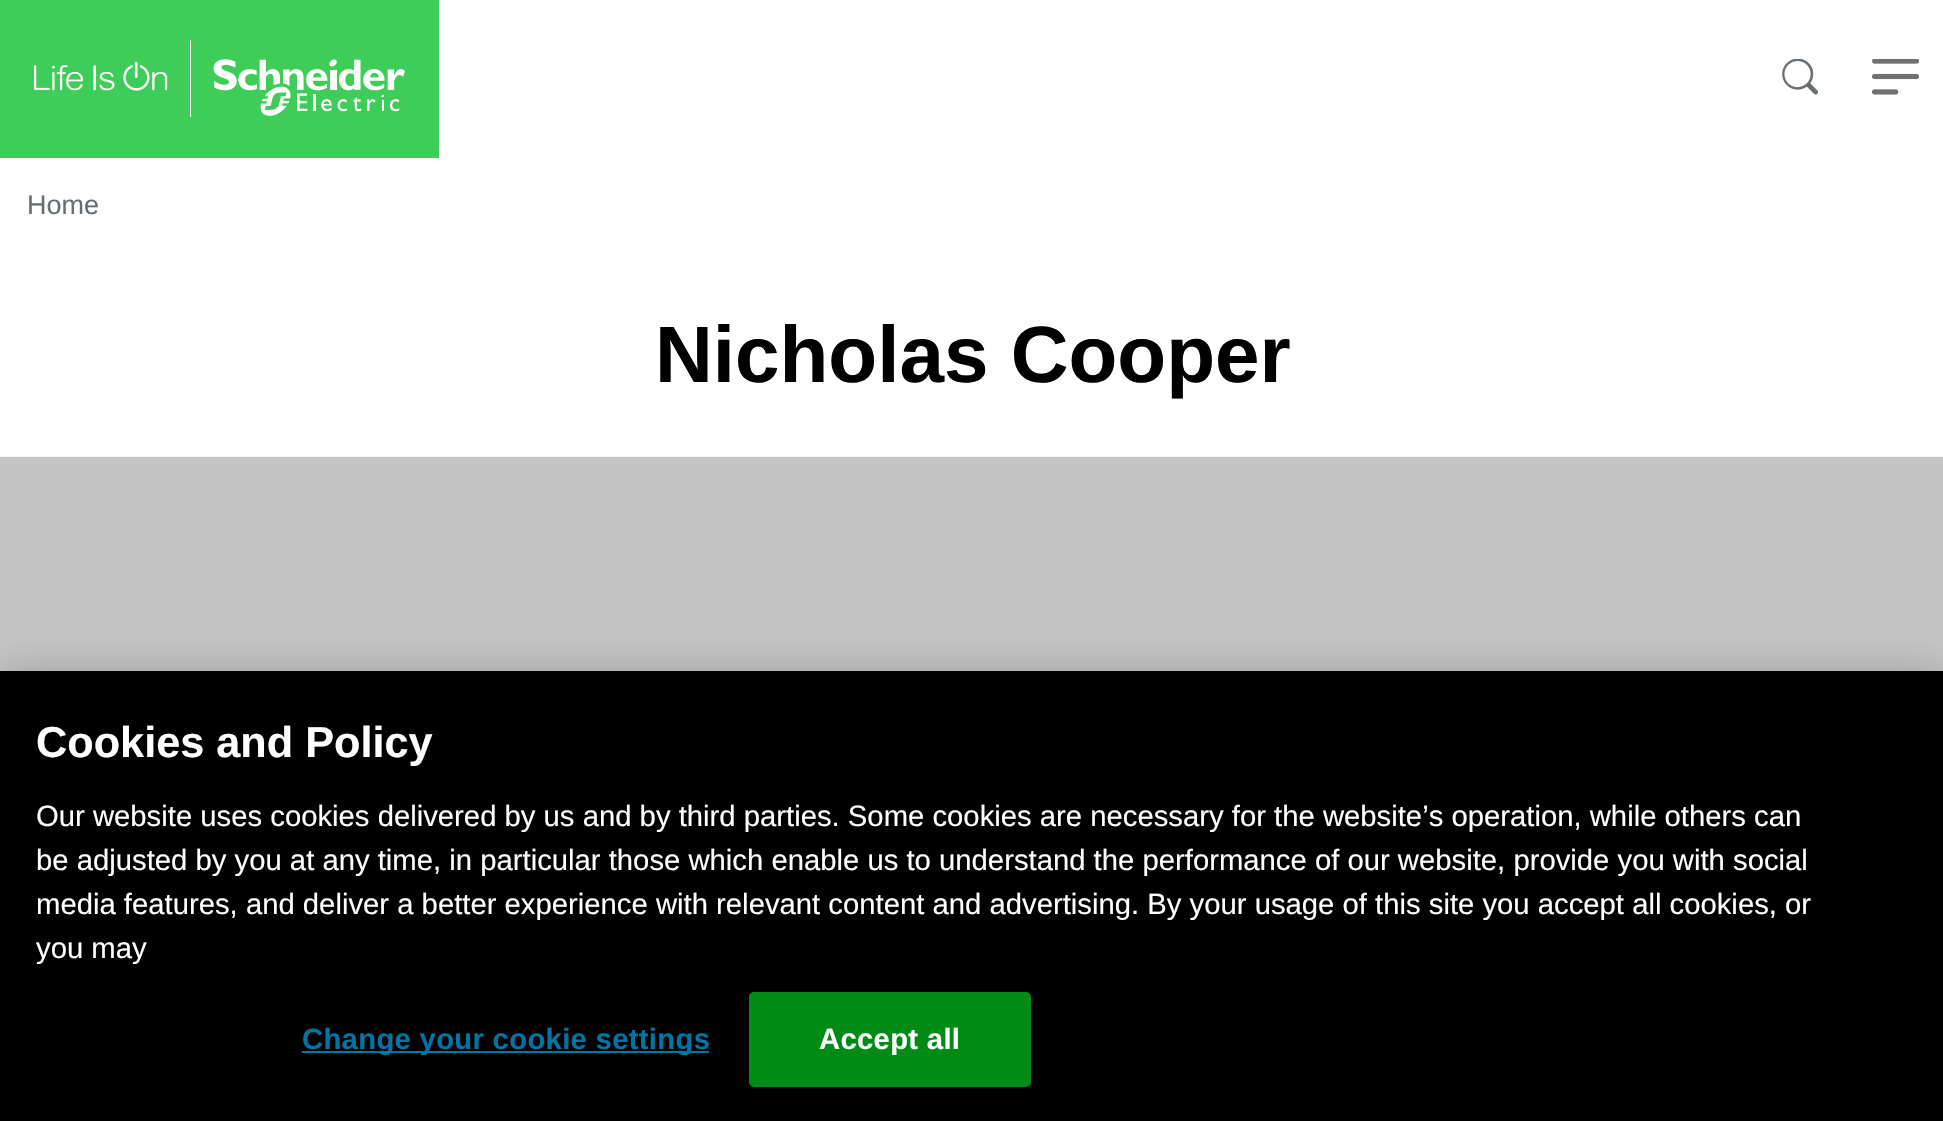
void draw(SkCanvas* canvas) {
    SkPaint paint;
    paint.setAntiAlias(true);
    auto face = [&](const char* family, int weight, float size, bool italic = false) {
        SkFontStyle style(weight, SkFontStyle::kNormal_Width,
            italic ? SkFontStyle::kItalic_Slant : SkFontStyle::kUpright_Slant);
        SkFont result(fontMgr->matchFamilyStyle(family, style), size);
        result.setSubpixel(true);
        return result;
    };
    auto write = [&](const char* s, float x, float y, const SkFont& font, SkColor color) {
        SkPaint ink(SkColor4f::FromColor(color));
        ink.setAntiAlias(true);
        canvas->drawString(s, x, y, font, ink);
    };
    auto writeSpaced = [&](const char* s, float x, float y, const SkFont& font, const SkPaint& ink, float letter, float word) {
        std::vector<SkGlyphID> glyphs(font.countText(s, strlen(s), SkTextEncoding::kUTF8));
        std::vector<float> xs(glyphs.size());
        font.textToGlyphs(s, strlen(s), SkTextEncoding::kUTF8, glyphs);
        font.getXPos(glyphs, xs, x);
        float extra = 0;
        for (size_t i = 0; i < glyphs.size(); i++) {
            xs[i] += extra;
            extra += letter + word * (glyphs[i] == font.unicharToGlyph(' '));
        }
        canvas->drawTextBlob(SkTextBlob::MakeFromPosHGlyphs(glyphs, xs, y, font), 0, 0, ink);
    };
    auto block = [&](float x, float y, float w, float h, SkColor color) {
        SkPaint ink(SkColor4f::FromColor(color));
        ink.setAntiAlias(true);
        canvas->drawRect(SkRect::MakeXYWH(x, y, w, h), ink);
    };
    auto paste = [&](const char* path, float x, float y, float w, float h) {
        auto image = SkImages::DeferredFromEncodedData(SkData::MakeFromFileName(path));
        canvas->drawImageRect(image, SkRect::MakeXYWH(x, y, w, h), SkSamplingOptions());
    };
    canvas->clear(SK_ColorWHITE);
    block(0, 0, 439, 158, SkColorSetRGB(61, 205, 88));
    paste("pic1.png", 34, 40, 371, 77);
    paste("pic2.png", 1782, 59, 36, 36);
    paste("pic3.png", 1872, 59, 47, 36);
    auto kFont1 = face("Liberation Sans", 400, 27);
    write("Home", 27, 214, kFont1, SkColorSetRGB(103, 111, 115));
    auto kFont2 = face("Liberation Sans", 700, 80);
    write("Nicholas Cooper", 655, 382, kFont2, SK_ColorBLACK);
    paste("pic4.png", 0, 456, 1943, 215);
    paint.setColor(SkColorSetARGB(51, 0, 0, 0));
    paint.setMaskFilter(SkMaskFilter::MakeBlur(kNormal_SkBlurStyle, 20));
    canvas->drawRect(SkRect::MakeXYWH(0, 671, 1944, 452), paint);
    paint.setMaskFilter(nullptr);
    block(0, 671, 1943, 450, SK_ColorBLACK);
    auto kFont3 = face("Liberation Sans", 700, 43.25f);
    write("Cookies and Policy", 36, 757, kFont3, SK_ColorWHITE);
    auto kFont4 = face("Liberation Sans", 400, 29.27f);
    write("Our website uses cookies delivered by us and by third parties. Some cookies are necessary for the website’s operation, while others can", 36, 826, kFont4, SK_ColorWHITE);
    write("be adjusted by you at any time, in particular those which enable us to understand the performance of our website, provide you with social", 36, 870, kFont4, SK_ColorWHITE);
    write("media features, and deliver a better experience with relevant content and advertising. By your usage of this site you accept all cookies, or", 36, 914, kFont4, SK_ColorWHITE);
    write("you may", 36, 958, kFont4, SK_ColorWHITE);
    block(302, 1051, 407, 2, SkColorSetRGB(0, 117, 163));
    auto kFont5 = face("Liberation Sans", 700, 29.27f);
    paint.setColor(SkColorSetRGB(0, 117, 163));
    writeSpaced("Change your cookie settings", 302, 1049, kFont5, paint, 0.3f, 0);
    paint.setColor(SkColorSetRGB(0, 138, 22));
    canvas->drawRoundRect(SkRect::MakeXYWH(750, 993, 280, 93), 4, 4, paint);
    paint.setStyle(SkPaint::kStroke_Style);
    paint.setStrokeWidth(2);
    canvas->drawRoundRect(SkRect::MakeXYWH(750, 993, 280, 93), 4, 4, paint);
    paint.setStyle(SkPaint::kFill_Style);
    paint.setColor(SK_ColorWHITE);
    writeSpaced("Accept all", 819, 1049, kFont5, paint, 0.3f, 0);
}
